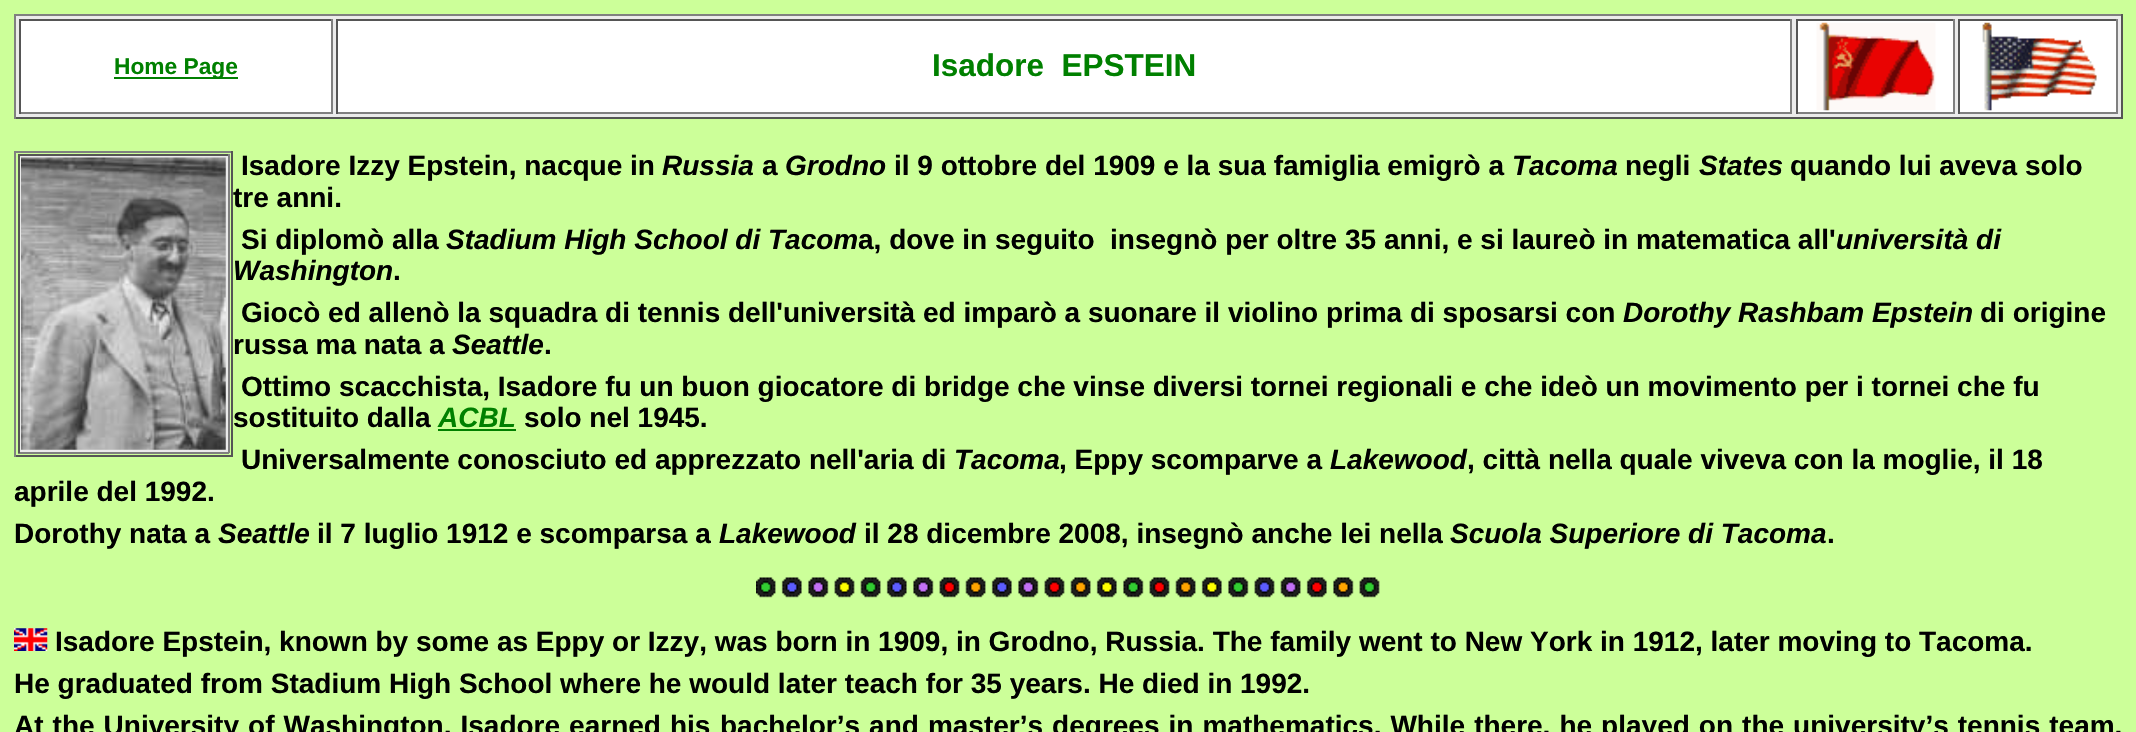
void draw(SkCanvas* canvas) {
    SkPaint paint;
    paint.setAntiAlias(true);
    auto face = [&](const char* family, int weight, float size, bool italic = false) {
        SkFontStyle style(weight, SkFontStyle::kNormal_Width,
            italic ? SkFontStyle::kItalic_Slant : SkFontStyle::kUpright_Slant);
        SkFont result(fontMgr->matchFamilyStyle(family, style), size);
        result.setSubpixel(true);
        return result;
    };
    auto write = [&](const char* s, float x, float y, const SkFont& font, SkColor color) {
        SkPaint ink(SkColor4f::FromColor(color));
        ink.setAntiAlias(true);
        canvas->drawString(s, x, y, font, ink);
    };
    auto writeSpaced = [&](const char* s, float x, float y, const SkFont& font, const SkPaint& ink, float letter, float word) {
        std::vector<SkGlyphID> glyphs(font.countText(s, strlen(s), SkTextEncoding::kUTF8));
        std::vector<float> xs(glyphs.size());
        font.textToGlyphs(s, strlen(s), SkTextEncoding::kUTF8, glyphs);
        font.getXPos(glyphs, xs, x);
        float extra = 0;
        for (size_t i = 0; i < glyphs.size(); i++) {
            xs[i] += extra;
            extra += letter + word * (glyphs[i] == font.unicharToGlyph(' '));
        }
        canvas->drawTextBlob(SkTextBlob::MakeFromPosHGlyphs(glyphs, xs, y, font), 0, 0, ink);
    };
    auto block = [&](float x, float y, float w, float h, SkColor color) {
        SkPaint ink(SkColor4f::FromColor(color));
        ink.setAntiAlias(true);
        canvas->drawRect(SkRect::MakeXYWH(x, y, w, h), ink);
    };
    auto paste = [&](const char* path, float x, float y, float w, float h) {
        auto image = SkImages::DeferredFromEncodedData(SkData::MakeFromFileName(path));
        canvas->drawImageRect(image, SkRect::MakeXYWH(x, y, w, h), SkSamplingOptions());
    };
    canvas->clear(SkColorSetRGB(204, 255, 153));
    block(16, 16, 2105, 101, SkColorSetRGB(235, 235, 235));
    block(14, 14, 2109, 2, SkColorSetRGB(128, 128, 128));
    block(2121, 14, 2, 105, SkColorSetRGB(85, 85, 85));
    block(14, 117, 2109, 2, SkColorSetRGB(85, 85, 85));
    block(14, 14, 2, 105, SkColorSetRGB(128, 128, 128));
    block(21, 21, 310, 91, SK_ColorWHITE);
    block(19, 19, 314, 2, SkColorSetRGB(85, 85, 85));
    block(331, 19, 2, 95, SkColorSetRGB(128, 128, 128));
    block(19, 112, 314, 2, SkColorSetRGB(128, 128, 128));
    block(19, 19, 2, 95, SkColorSetRGB(85, 85, 85));
    block(114, 77, 124, 2, SkColorSetRGB(0, 128, 0));
    auto kFont1 = face("Liberation Sans", 700, 22.75f);
    write("Home Page", 114, 74, kFont1, SkColorSetRGB(0, 128, 0));
    block(338, 21, 1452, 91, SK_ColorWHITE);
    block(336, 19, 1456, 2, SkColorSetRGB(85, 85, 85));
    block(1790, 19, 2, 95, SkColorSetRGB(128, 128, 128));
    block(336, 112, 1456, 2, SkColorSetRGB(128, 128, 128));
    block(336, 19, 2, 95, SkColorSetRGB(85, 85, 85));
    auto kFont2 = face("Liberation Sans", 700, 31.5f);
    write("Isadore  EPSTEIN", 932, 76, kFont2, SkColorSetRGB(0, 128, 0));
    block(1798, 21, 155, 91, SK_ColorWHITE);
    block(1796, 19, 159, 2, SkColorSetRGB(85, 85, 85));
    block(1953, 19, 2, 95, SkColorSetRGB(128, 128, 128));
    block(1796, 112, 159, 2, SkColorSetRGB(128, 128, 128));
    block(1796, 19, 2, 95, SkColorSetRGB(85, 85, 85));
    paste("pic1.png", 1816, 22, 120, 89);
    block(1960, 21, 156, 91, SK_ColorWHITE);
    block(1958, 19, 160, 2, SkColorSetRGB(85, 85, 85));
    block(2116, 19, 2, 95, SkColorSetRGB(128, 128, 128));
    block(1958, 112, 160, 2, SkColorSetRGB(128, 128, 128));
    block(1958, 19, 2, 95, SkColorSetRGB(85, 85, 85));
    paste("pic2.png", 1982, 22, 115, 89);
    block(14, 151, 219, 2, SkColorSetRGB(128, 128, 128));
    block(231, 151, 2, 306, SkColorSetRGB(85, 85, 85));
    block(14, 455, 219, 2, SkColorSetRGB(85, 85, 85));
    block(14, 151, 2, 306, SkColorSetRGB(128, 128, 128));
    block(20, 156, 208, 296, SkColorSetRGB(234, 234, 234));
    block(18, 154, 211, 2, SkColorSetRGB(85, 85, 85));
    block(228, 154, 2, 299, SkColorSetRGB(128, 128, 128));
    block(18, 452, 211, 2, SkColorSetRGB(128, 128, 128));
    block(18, 154, 2, 299, SkColorSetRGB(85, 85, 85));
    paste("pic3.png", 21, 157, 205, 293);
    auto kFont3 = face("Liberation Sans", 700, 28);
    write("Isadore Izzy Epstein, nacque in", 241, 175, kFont3, SK_ColorBLACK);
    auto kFont4 = face("Liberation Sans", 700, 28, true);
    write("Russia", 662, 175, kFont4, SK_ColorBLACK);
    write("a", 762, 175, kFont3, SK_ColorBLACK);
    write("Grodno", 785, 175, kFont4, SK_ColorBLACK);
    write("il 9 ottobre del 1909 e la sua famiglia emigrò a", 894, 175, kFont3, SK_ColorBLACK);
    write("Tacoma", 1512, 175, kFont4, SK_ColorBLACK);
    write("negli", 1625, 175, kFont3, SK_ColorBLACK);
    write("States", 1699, 175, kFont4, SK_ColorBLACK);
    write("quando lui aveva solo", 1790, 175, kFont3, SK_ColorBLACK);
    write("tre anni.", 233, 207, kFont3, SK_ColorBLACK);
    write("Si diplomò alla", 241, 249, kFont3, SK_ColorBLACK);
    write("Stadium High School di Tacom", 446, 249, kFont4, SK_ColorBLACK);
    write("a, dove in seguito  insegnò per oltre 35 anni, e si laureò in matematica all'", 858, 249, kFont3, SK_ColorBLACK);
    write("università di", 1836, 249, kFont4, SK_ColorBLACK);
    write("Washington", 233, 280, kFont4, SK_ColorBLACK);
    write(".", 393, 280, kFont3, SK_ColorBLACK);
    write("Giocò ed allenò la squadra di tennis dell'università ed imparò a suonare il violino prima di sposarsi con", 241, 322, kFont3, SK_ColorBLACK);
    write("Dorothy Rashbam Epstein", 1623, 322, kFont4, SK_ColorBLACK);
    write("di origine", 1980, 322, kFont3, SK_ColorBLACK);
    write("russa ma nata a", 233, 354, kFont3, SK_ColorBLACK);
    write("Seattle", 452, 354, kFont4, SK_ColorBLACK);
    write(".", 544, 354, kFont3, SK_ColorBLACK);
    write("Ottimo scacchista, Isadore fu un buon giocatore di bridge che vinse diversi tornei regionali e che ideò un movimento per i tornei che fu", 241, 396, kFont3, SK_ColorBLACK);
    write("sostituito dalla", 233, 427, kFont3, SK_ColorBLACK);
    write("ACBL", 438, 427, kFont4, SkColorSetRGB(0, 128, 0));
    block(438, 429, 78, 2, SkColorSetRGB(0, 128, 0));
    write("solo nel 1945.", 524, 427, kFont3, SK_ColorBLACK);
    write("Universalmente conosciuto ed apprezzato nell'aria di", 241, 469, kFont3, SK_ColorBLACK);
    write("Tacoma", 954, 469, kFont4, SK_ColorBLACK);
    write(", Eppy scomparve a", 1059, 469, kFont3, SK_ColorBLACK);
    write("Lakewood", 1330, 469, kFont4, SK_ColorBLACK);
    write(", città nella quale viveva con la moglie, il 18", 1467, 469, kFont3, SK_ColorBLACK);
    write("aprile del 1992.", 14, 501, kFont3, SK_ColorBLACK);
    write("Dorothy nata a", 14, 543, kFont3, SK_ColorBLACK);
    write("Seattle", 218, 543, kFont4, SK_ColorBLACK);
    write("il 7 luglio 1912 e scomparsa a", 317, 543, kFont3, SK_ColorBLACK);
    write("Lakewood", 719, 543, kFont4, SK_ColorBLACK);
    write("il 28 dicembre 2008, insegnò anche lei nella", 864, 543, kFont3, SK_ColorBLACK);
    write("Scuola Superiore di Tacoma", 1450, 543, kFont4, SK_ColorBLACK);
    write(".", 1827, 543, kFont3, SK_ColorBLACK);
    paste("pic4.png", 756, 577, 624, 21);
    paste("pic5.png", 14, 628, 34, 23);
    write("Isadore Epstein, known by some as Eppy or Izzy, was born in 1909, in Grodno, Russia. The family went to New York in 1912, later moving to Tacoma.", 55, 651, kFont3, SK_ColorBLACK);
    write("He graduated from Stadium High School where he would later teach for 35 years. He died in 1992.", 14, 693, kFont3, SK_ColorBLACK);
    paint.setColor(SK_ColorBLACK);
    writeSpaced("At the University of Washington, Isadore earned his", 14, 735, kFont3, paint, 0, 1.25f);
    writeSpaced("bachelor’s and master’s degrees in mathematics. While there, he played on the university’s tennis team.", 720, 735, kFont3, paint, 0, 1.25f);
}
